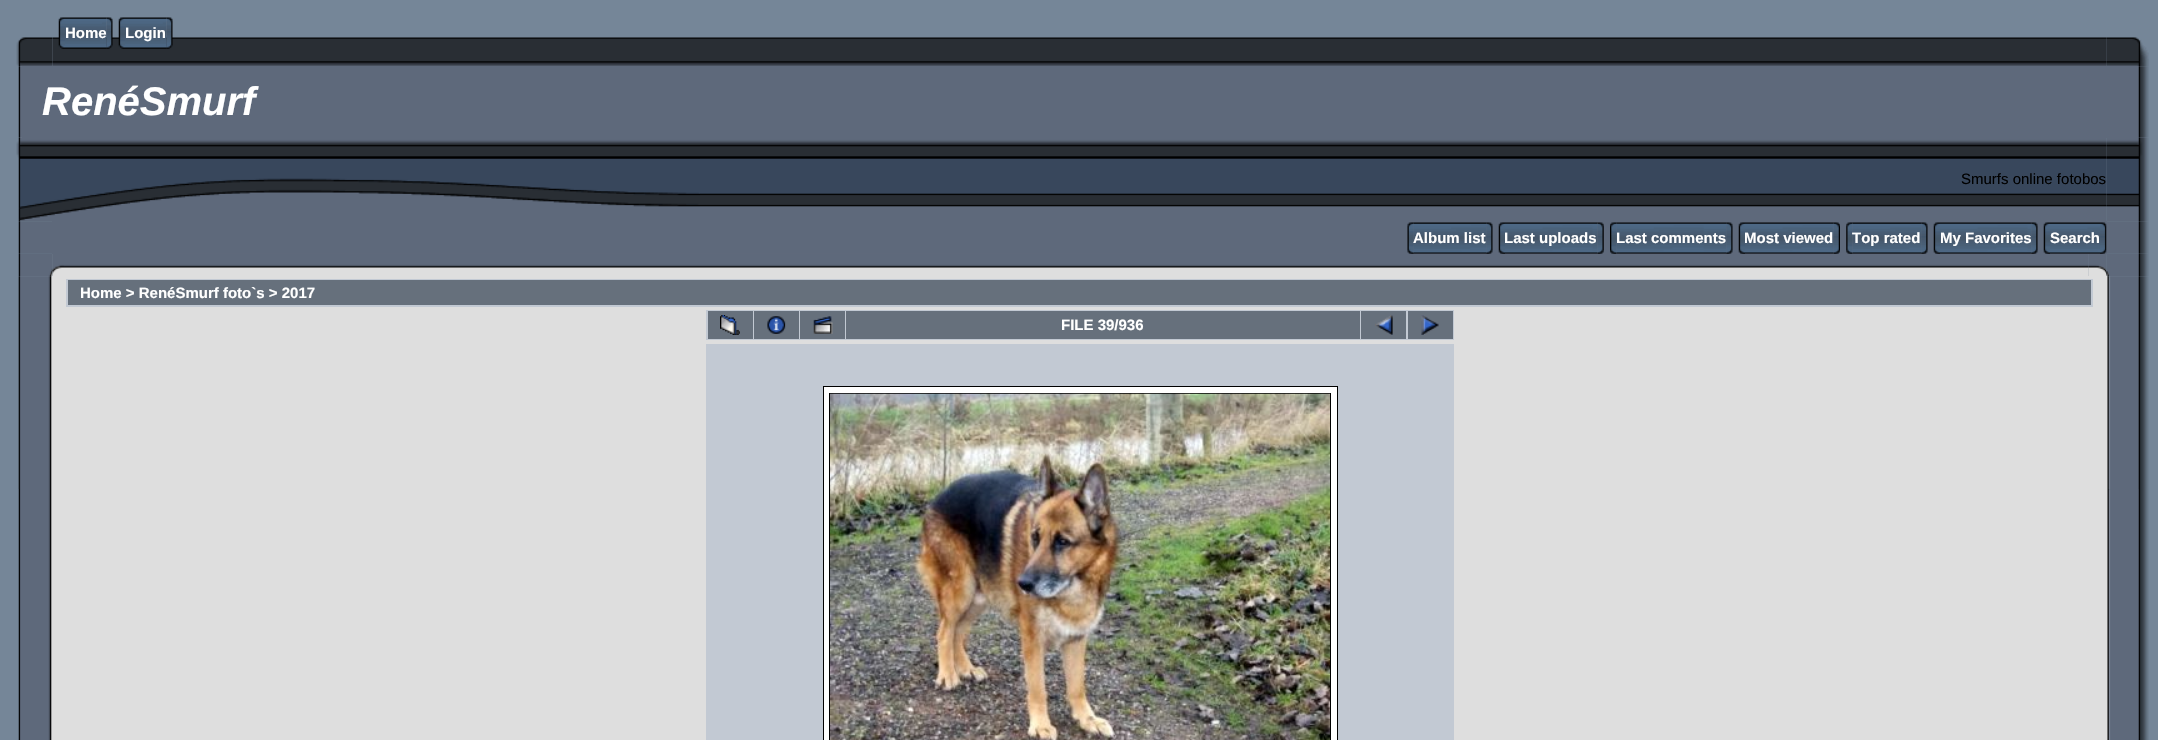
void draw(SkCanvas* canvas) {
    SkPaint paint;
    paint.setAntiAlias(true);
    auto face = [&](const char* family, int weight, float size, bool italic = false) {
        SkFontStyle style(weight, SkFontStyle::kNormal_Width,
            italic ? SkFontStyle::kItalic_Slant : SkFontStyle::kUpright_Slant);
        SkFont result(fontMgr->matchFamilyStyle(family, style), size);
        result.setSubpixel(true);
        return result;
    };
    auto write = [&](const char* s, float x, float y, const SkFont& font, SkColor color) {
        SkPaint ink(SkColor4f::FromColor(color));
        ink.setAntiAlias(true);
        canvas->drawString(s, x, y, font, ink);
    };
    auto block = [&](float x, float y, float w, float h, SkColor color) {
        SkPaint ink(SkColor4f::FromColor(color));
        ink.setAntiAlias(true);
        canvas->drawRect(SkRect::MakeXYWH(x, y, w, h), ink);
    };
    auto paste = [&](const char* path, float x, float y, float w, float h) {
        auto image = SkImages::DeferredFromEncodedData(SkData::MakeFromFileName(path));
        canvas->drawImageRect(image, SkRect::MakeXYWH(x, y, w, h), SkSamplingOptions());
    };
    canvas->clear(SkColorSetRGB(117, 134, 152));
    paste("pic8.png", 16, 37, 37, 30);
    paste("pic1.png", 52, 37, 2055, 29);
    paste("pic2.png", 58, 17, 7, 32);
    paste("pic3.png", 65, 17, 42, 32);
    auto kFont1 = face("Liberation Sans", 700, 15);
    write("Home", 65, 38, kFont1, SK_ColorWHITE);
    paste("pic4.png", 106, 17, 7, 32);
    paste("pic5.png", 118, 17, 7, 32);
    paste("pic6.png", 125, 17, 42, 32);
    write("Login", 125, 38, kFont1, SK_ColorWHITE);
    paste("pic7.png", 166, 17, 7, 32);
    paste("pic9.png", 2106, 37, 43, 30);
    paste("pic10.png", 18, 66, 4, 72);
    block(22, 66, 2117, 72, SkColorSetRGB(94, 105, 123));
    auto kFont2 = face("Liberation Sans", 700, 40, true);
    write("RenéSmurf", 42, 115, kFont2, SK_ColorWHITE);
    paste("pic11.png", 2138, 66, 11, 72);
    paste("pic12.png", 16, 137, 684, 85);
    paste("pic13.png", 700, 138, 1407, 83);
    auto kFont3 = face("Liberation Sans", 400, 15);
    write("Smurfs online fotobos", 1961, 184, kFont3, SK_ColorBLACK);
    paste("pic14.png", 2106, 137, 43, 85);
    paste("pic15.png", 18, 221, 34, 33);
    block(52, 221, 2055, 33, SkColorSetRGB(94, 105, 123));
    paste("pic17.png", 1413, 222, 74, 32);
    paste("pic20.png", 1505, 222, 93, 32);
    paste("pic23.png", 1616, 222, 111, 32);
    paste("pic25.png", 1745, 222, 89, 32);
    paste("pic28.png", 1852, 222, 70, 32);
    paste("pic29.png", 1940, 222, 92, 32);
    paste("pic32.png", 2050, 222, 50, 32);
    paste("pic37.png", 70, 253, 2019, 23);
    paste("pic16.png", 1407, 222, 7, 32);
    write("Album list", 1413, 243, kFont1, SK_ColorWHITE);
    paste("pic18.png", 1486, 222, 7, 32);
    paste("pic19.png", 1498, 222, 7, 32);
    write("Last uploads", 1504, 243, kFont1, SK_ColorWHITE);
    paste("pic21.png", 1597, 222, 7, 32);
    paste("pic22.png", 1610, 222, 7, 32);
    write("Last comments", 1616, 243, kFont1, SK_ColorWHITE);
    paste("pic24.png", 1726, 222, 7, 32);
    paste("pic19.png", 1738, 222, 7, 32);
    write("Most viewed", 1744, 243, kFont1, SK_ColorWHITE);
    paste("pic26.png", 1833, 222, 7, 32);
    paste("pic27.png", 1846, 222, 7, 32);
    write("Top rated", 1852, 243, kFont1, SK_ColorWHITE);
    paste("pic18.png", 1921, 222, 7, 32);
    paste("pic19.png", 1933, 222, 7, 32);
    write("My Favorites", 1940, 243, kFont1, SK_ColorWHITE);
    paste("pic30.png", 2031, 222, 7, 32);
    paste("pic31.png", 2043, 222, 7, 32);
    write("Search", 2050, 243, kFont1, SK_ColorWHITE);
    paste("pic38.png", 2088, 253, 19, 23);
    paste("pic34.png", 2107, 221, 42, 33);
    paste("pic39.png", 2106, 253, 43, 24);
    paste("pic33.png", 2100, 222, 7, 32);
    paste("pic35.png", 18, 253, 35, 24);
    paste("pic36.png", 52, 254, 18, 22);
    paste("pic40.png", 18, 276, 34, 464);
    paste("pic41.png", 18, 489, 2, 251);
    block(52, 276, 2055, 464, SkColorSetRGB(222, 222, 222));
    block(66, 279, 2027, 28, SkColorSetRGB(194, 201, 211));
    block(68, 280, 2023, 25, SkColorSetRGB(102, 112, 124));
    write("Home > RenéSmurf foto`s > 2017", 80, 298, kFont1, SK_ColorWHITE);
    block(706, 310, 748, 30, SkColorSetRGB(194, 201, 211));
    block(708, 311, 45, 28, SkColorSetRGB(102, 112, 124));
    paste("pic42.png", 720, 315, 20, 20);
    block(754, 311, 45, 28, SkColorSetRGB(102, 112, 124));
    paste("pic43.png", 767, 316, 19, 18);
    block(800, 311, 45, 28, SkColorSetRGB(102, 112, 124));
    paste("pic44.png", 813, 316, 20, 18);
    block(846, 311, 514, 28, SkColorSetRGB(102, 112, 124));
    write("FILE 39/936", 1061, 330, kFont1, SK_ColorWHITE);
    block(1361, 311, 45, 28, SkColorSetRGB(102, 112, 124));
    paste("pic45.png", 1375, 315, 18, 20);
    block(1408, 311, 45, 28, SkColorSetRGB(102, 112, 124));
    paste("pic46.png", 1421, 315, 18, 20);
    block(706, 344, 748, 396, SkColorSetRGB(194, 201, 211));
    paint.setColor(SK_ColorWHITE);
    canvas->drawRect(SkRect::MakeXYWH(823.5f, 386.5f, 514, 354), paint);
    paint.setStyle(SkPaint::kStroke_Style);
    paint.setStrokeWidth(1);
    paint.setColor(SK_ColorBLACK);
    canvas->drawRect(SkRect::MakeXYWH(823.5f, 386.5f, 514, 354), paint);
    canvas->drawRect(SkRect::MakeXYWH(829.5f, 393.5f, 501, 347), paint);
    paste("pic47.png", 830, 393, 500, 347);
    paste("pic48.png", 2107, 276, 42, 464);
    paste("pic49.png", 2108, 489, 31, 251);
}
